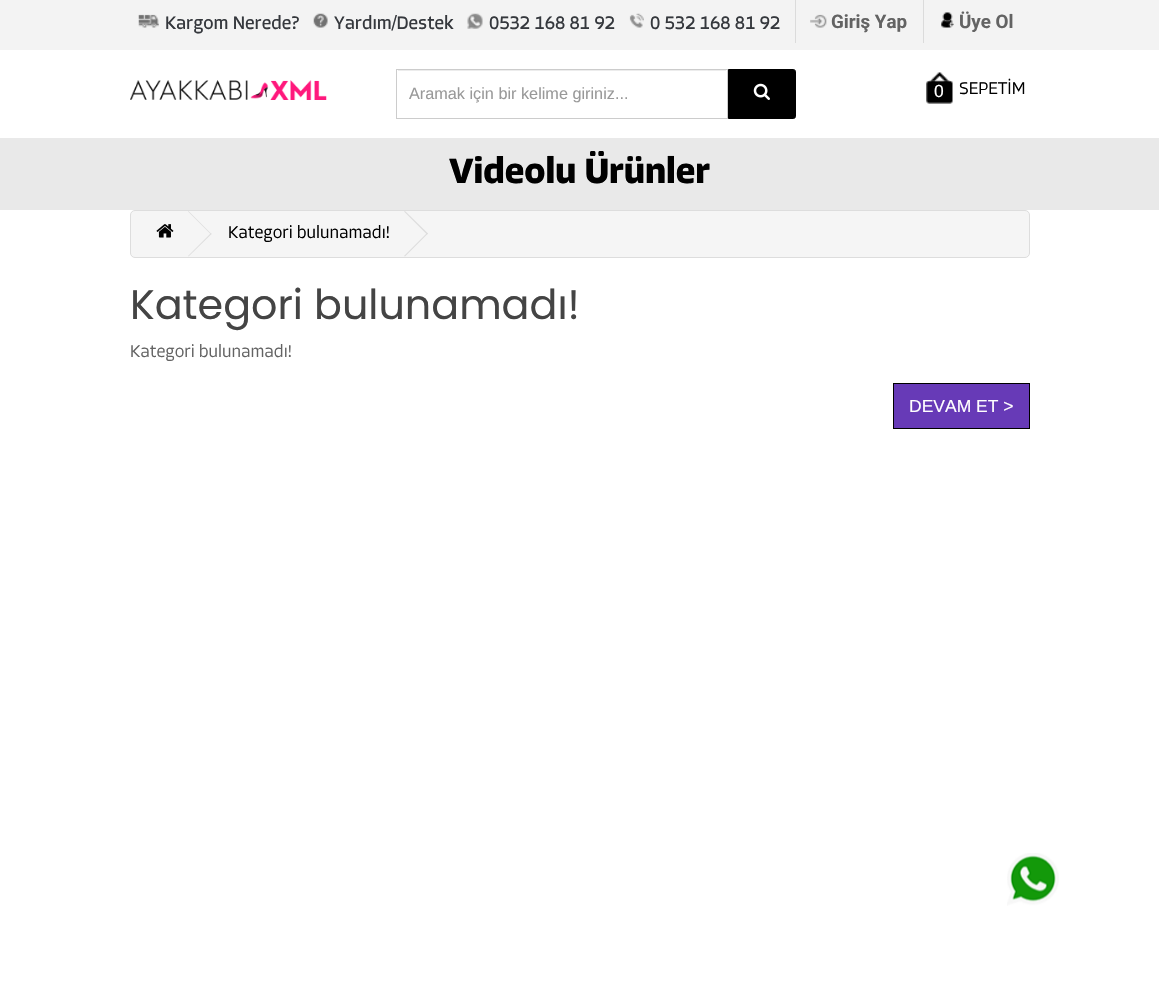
void draw(SkCanvas* canvas) {
    SkPaint paint;
    paint.setAntiAlias(true);
    auto face = [&](const char* family, int weight, float size, bool italic = false) {
        SkFontStyle style(weight, SkFontStyle::kNormal_Width,
            italic ? SkFontStyle::kItalic_Slant : SkFontStyle::kUpright_Slant);
        SkFont result(fontMgr->matchFamilyStyle(family, style), size);
        result.setSubpixel(true);
        return result;
    };
    auto write = [&](const char* s, float x, float y, const SkFont& font, SkColor color) {
        SkPaint ink(SkColor4f::FromColor(color));
        ink.setAntiAlias(true);
        canvas->drawString(s, x, y, font, ink);
    };
    auto block = [&](float x, float y, float w, float h, SkColor color) {
        SkPaint ink(SkColor4f::FromColor(color));
        ink.setAntiAlias(true);
        canvas->drawRect(SkRect::MakeXYWH(x, y, w, h), ink);
    };
    auto paste = [&](const char* path, float x, float y, float w, float h) {
        auto image = SkImages::DeferredFromEncodedData(SkData::MakeFromFileName(path));
        canvas->drawImageRect(image, SkRect::MakeXYWH(x, y, w, h), SkSamplingOptions());
    };
    canvas->clear(SK_ColorWHITE);
    block(0, 0, 1159, 50, SkColorSetRGB(243, 243, 243));
    paste("pic1.png", 138, 14, 21, 14);
    auto kFont1 = face("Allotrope", 400, 18.75f);
    write("Kargom Nerede?", 165, 29, kFont1, SkColorSetRGB(53, 56, 61));
    paste("pic2.png", 313, 13, 15, 15);
    write("Yardım/Destek", 334, 29, kFont1, SkColorSetRGB(53, 56, 61));
    paste("pic3.png", 467, 13, 16, 16);
    write("0532 168 81 92", 489, 29, kFont1, SkColorSetRGB(53, 56, 61));
    paste("pic4.png", 629, 13, 15, 15);
    write("0 532 168 81 92", 650, 29, kFont1, SkColorSetRGB(53, 56, 61));
    block(795, 0, 1, 43, SkColorSetRGB(219, 219, 219));
    paste("pic5.png", 810, 14, 17, 14);
    auto kFont2 = face("Roboto", 700, 18.75f);
    write("Giriş Yap", 831, 28, kFont2, SkColorSetRGB(99, 99, 99));
    block(923, 0, 1, 43, SkColorSetRGB(219, 219, 219));
    paste("pic6.png", 941, 12, 13, 16);
    write("Üye Ol", 959, 28, kFont2, SkColorSetRGB(99, 99, 99));
    paste("pic7.png", 130, 80, 197, 20);
    block(398, 70, 328, 1, SkColorSetRGB(236, 236, 236));
    paint.setStyle(SkPaint::kStroke_Style);
    paint.setStrokeWidth(1);
    paint.setColor(SkColorSetRGB(204, 204, 204));
    canvas->drawRect(SkRect::MakeXYWH(396.5f, 69.5f, 331, 49), paint);
    auto kFont3 = face("Liberation Sans", 400, 16.25f);
    write("Aramak için bir kelime giriniz...", 409, 99, kFont3, SkColorSetRGB(153, 153, 153));
    paint.setStyle(SkPaint::kFill_Style);
    paint.setColor(SK_ColorBLACK);
    canvas->drawPath(SkPathBuilder().moveTo(728.5f, 69.5f).lineTo(793.5f, 69.5f).cubicTo(794.5f, 69.5f, 795.5f, 70.5f, 795.5f, 71.5f).lineTo(795.5f, 116.5f).cubicTo(795.5f, 117.5f, 794.5f, 118.5f, 793.5f, 118.5f).lineTo(728.5f, 118.5f).close().detach(), paint);
    paint.setStyle(SkPaint::kStroke_Style);
    canvas->drawPath(SkPathBuilder().moveTo(728.5f, 69.5f).lineTo(793.5f, 69.5f).cubicTo(794.5f, 69.5f, 795.5f, 70.5f, 795.5f, 71.5f).lineTo(795.5f, 116.5f).cubicTo(795.5f, 117.5f, 794.5f, 118.5f, 793.5f, 118.5f).lineTo(728.5f, 118.5f).close().detach(), paint);
    paste("pic8.png", 753, 83, 17, 17);
    paste("pic9.png", 926, 72, 27, 32);
    auto kFont4 = face("Liberation Sans", 400, 17.5f);
    write("0", 934, 97, kFont4, SK_ColorWHITE);
    auto kFont5 = face("Allotrope", 300, 17.5f);
    write("SEPETİM", 959, 94, kFont5, SK_ColorBLACK);
    block(0, 138, 1159, 72, SkColorSetRGB(233, 233, 233));
    auto kFont6 = face("Allotrope", 700, 36.25f);
    write("Videolu Ürünler", 449, 183, kFont6, SK_ColorBLACK);
    paint.setStyle(SkPaint::kFill_Style);
    paint.setColor(SkColorSetRGB(245, 245, 245));
    canvas->drawRoundRect(SkRect::MakeXYWH(130.5f, 210.5f, 899, 47), 4.5f, 4.5f, paint);
    paint.setStyle(SkPaint::kStroke_Style);
    paint.setColor(SkColorSetRGB(221, 221, 221));
    canvas->drawRoundRect(SkRect::MakeXYWH(130.5f, 210.5f, 899, 47), 4.5f, 4.5f, paint);
    paste("pic10.png", 156, 224, 18, 14);
    paint.setStyle(SkPaint::kFill_Style);
    canvas->drawPath(SkPathBuilder().moveTo(188, 211.5f).lineTo(188.5f, 211).lineTo(211.5f, 234).lineTo(211, 234.5f).close().detach(), paint);
    canvas->drawPath(SkPathBuilder().moveTo(188, 256).lineTo(211, 233).lineTo(211.5f, 234).lineTo(188.5f, 256.5f).close().detach(), paint);
    write("Kategori bulunamadı!", 228, 238, kFont5, SK_ColorBLACK);
    canvas->drawPath(SkPathBuilder().moveTo(404, 211.5f).lineTo(405, 211).lineTo(428, 233.5f).lineTo(427, 234.5f).close().detach(), paint);
    canvas->drawPath(SkPathBuilder().moveTo(404, 256).lineTo(427, 233).lineTo(428, 233.5f).lineTo(405, 256.5f).close().detach(), paint);
    auto kFont7 = face("Poppins", 400, 41.25f);
    write("Kategori bulunamadı!", 130, 319, kFont7, SkColorSetRGB(68, 68, 68));
    write("Kategori bulunamadı!", 130, 357, kFont5, SkColorSetRGB(99, 99, 99));
    paint.setColor(SkColorSetRGB(103, 58, 183));
    canvas->drawRect(SkRect::MakeXYWH(893.5f, 383.5f, 136, 45), paint);
    paint.setStyle(SkPaint::kStroke_Style);
    paint.setColor(SK_ColorBLACK);
    canvas->drawRect(SkRect::MakeXYWH(893.5f, 383.5f, 136, 45), paint);
    write("DEVAM ET >", 909, 412, kFont4, SK_ColorWHITE);
    paste("pic11.png", 1007, 853, 52, 53);
}
